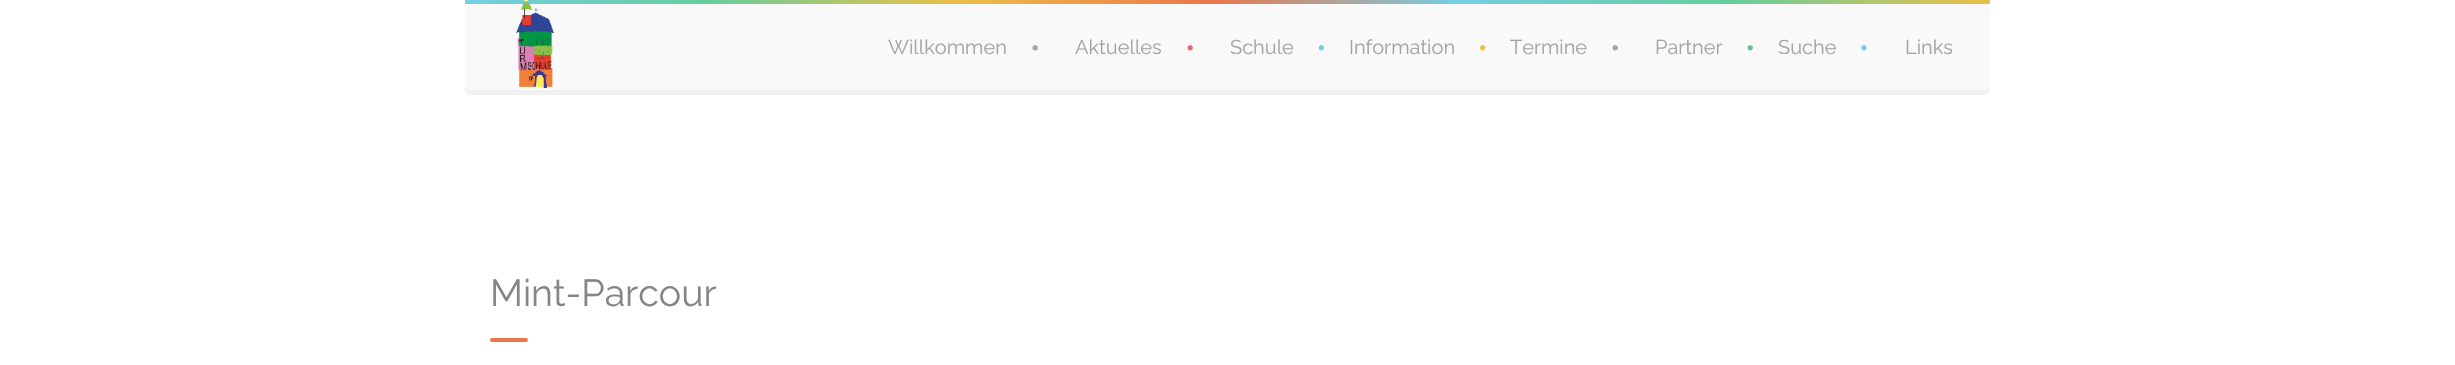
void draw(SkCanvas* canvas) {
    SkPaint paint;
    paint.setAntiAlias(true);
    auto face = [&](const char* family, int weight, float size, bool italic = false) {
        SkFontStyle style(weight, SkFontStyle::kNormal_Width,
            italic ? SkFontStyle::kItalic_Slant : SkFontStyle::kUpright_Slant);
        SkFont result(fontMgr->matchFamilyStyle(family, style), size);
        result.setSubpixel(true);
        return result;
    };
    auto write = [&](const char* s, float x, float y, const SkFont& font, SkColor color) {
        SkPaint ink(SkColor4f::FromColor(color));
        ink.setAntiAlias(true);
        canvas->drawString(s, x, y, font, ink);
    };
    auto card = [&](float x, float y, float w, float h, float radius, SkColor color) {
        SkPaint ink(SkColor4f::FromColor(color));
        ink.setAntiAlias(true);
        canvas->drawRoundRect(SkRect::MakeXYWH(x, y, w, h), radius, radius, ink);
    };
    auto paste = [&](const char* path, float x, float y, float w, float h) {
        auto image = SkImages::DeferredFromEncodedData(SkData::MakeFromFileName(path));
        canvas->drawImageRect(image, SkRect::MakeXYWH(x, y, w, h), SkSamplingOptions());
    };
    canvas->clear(SK_ColorWHITE);
    {
        const SkColor colors[] = {SkColorSetRGB(116, 206, 228), SkColorSetRGB(102, 206, 156), SkColorSetRGB(237, 191, 71), SkColorSetRGB(236, 119, 75), SkColorSetRGB(116, 206, 228), SkColorSetRGB(102, 206, 156), SkColorSetRGB(237, 191, 71)};
        const float stops[] = {0, 0.16f, 0.32f, 0.49f, 0.65f, 0.83f, 1};
        const SkPoint ends[] = {{465, 1.9f}, {1990, 1.9f}};
        paint.setShader(SkGradientShader::MakeLinear(ends, colors, stops, 7, SkTileMode::kClamp));
        paint.setAlpha(255);
    }
    canvas->drawRect(SkRect::MakeXYWH(465, 0, 1525, 4), paint);
    paint.setShader(nullptr);
    paint.setColor(SkColorSetRGB(241, 241, 241));
    canvas->drawPath(SkPathBuilder().moveTo(465, 84).lineTo(465, 89).cubicTo(465, 92, 468, 95, 471, 95).lineTo(1984, 95).cubicTo(1987, 95, 1990, 92, 1990, 89).lineTo(1990, 84).cubicTo(1990, 87, 1987, 90, 1984, 90).lineTo(471, 90).cubicTo(468, 90, 465, 87, 465, 84).close().detach(), paint);
    paint.setColor(SkColorSetRGB(249, 249, 249));
    canvas->drawPath(SkPathBuilder().moveTo(465, 4).lineTo(1990, 4).lineTo(1990, 84).cubicTo(1990, 87.5f, 1987.5f, 90, 1984, 90).lineTo(471, 90).cubicTo(467.5f, 90, 465, 87.5f, 465, 84).close().detach(), paint);
    paste("pic1.png", 516, 0, 38, 88);
    auto kFont1 = face("Raleway", 100, 20);
    write("Willkommen", 888, 54, kFont1, SkColorSetRGB(164, 164, 164));
    paste("pic2.png", 1032, 45, 6, 6);
    write("Aktuelles", 1075, 54, kFont1, SkColorSetRGB(164, 164, 164));
    paste("pic3.png", 1187, 45, 6, 6);
    write("Schule", 1230, 54, kFont1, SkColorSetRGB(164, 164, 164));
    paste("pic4.png", 1318, 45, 7, 6);
    write("Information", 1349, 54, kFont1, SkColorSetRGB(164, 164, 164));
    paste("pic5.png", 1480, 45, 6, 6);
    write("Termine", 1510, 54, kFont1, SkColorSetRGB(164, 164, 164));
    paste("pic2.png", 1612, 45, 6, 6);
    write("Partner", 1655, 54, kFont1, SkColorSetRGB(164, 164, 164));
    paste("pic6.png", 1747, 45, 6, 6);
    write("Suche", 1778, 54, kFont1, SkColorSetRGB(164, 164, 164));
    paste("pic7.png", 1861, 45, 6, 6);
    write("Links", 1905, 54, kFont1, SkColorSetRGB(164, 164, 164));
    auto kFont2 = face("Raleway", 100, 37.5f);
    write("Mint-Parcour", 490, 306, kFont2, SkColorSetRGB(134, 133, 133));
    card(490, 338, 38, 4, 2, SkColorSetRGB(236, 119, 75));
}
